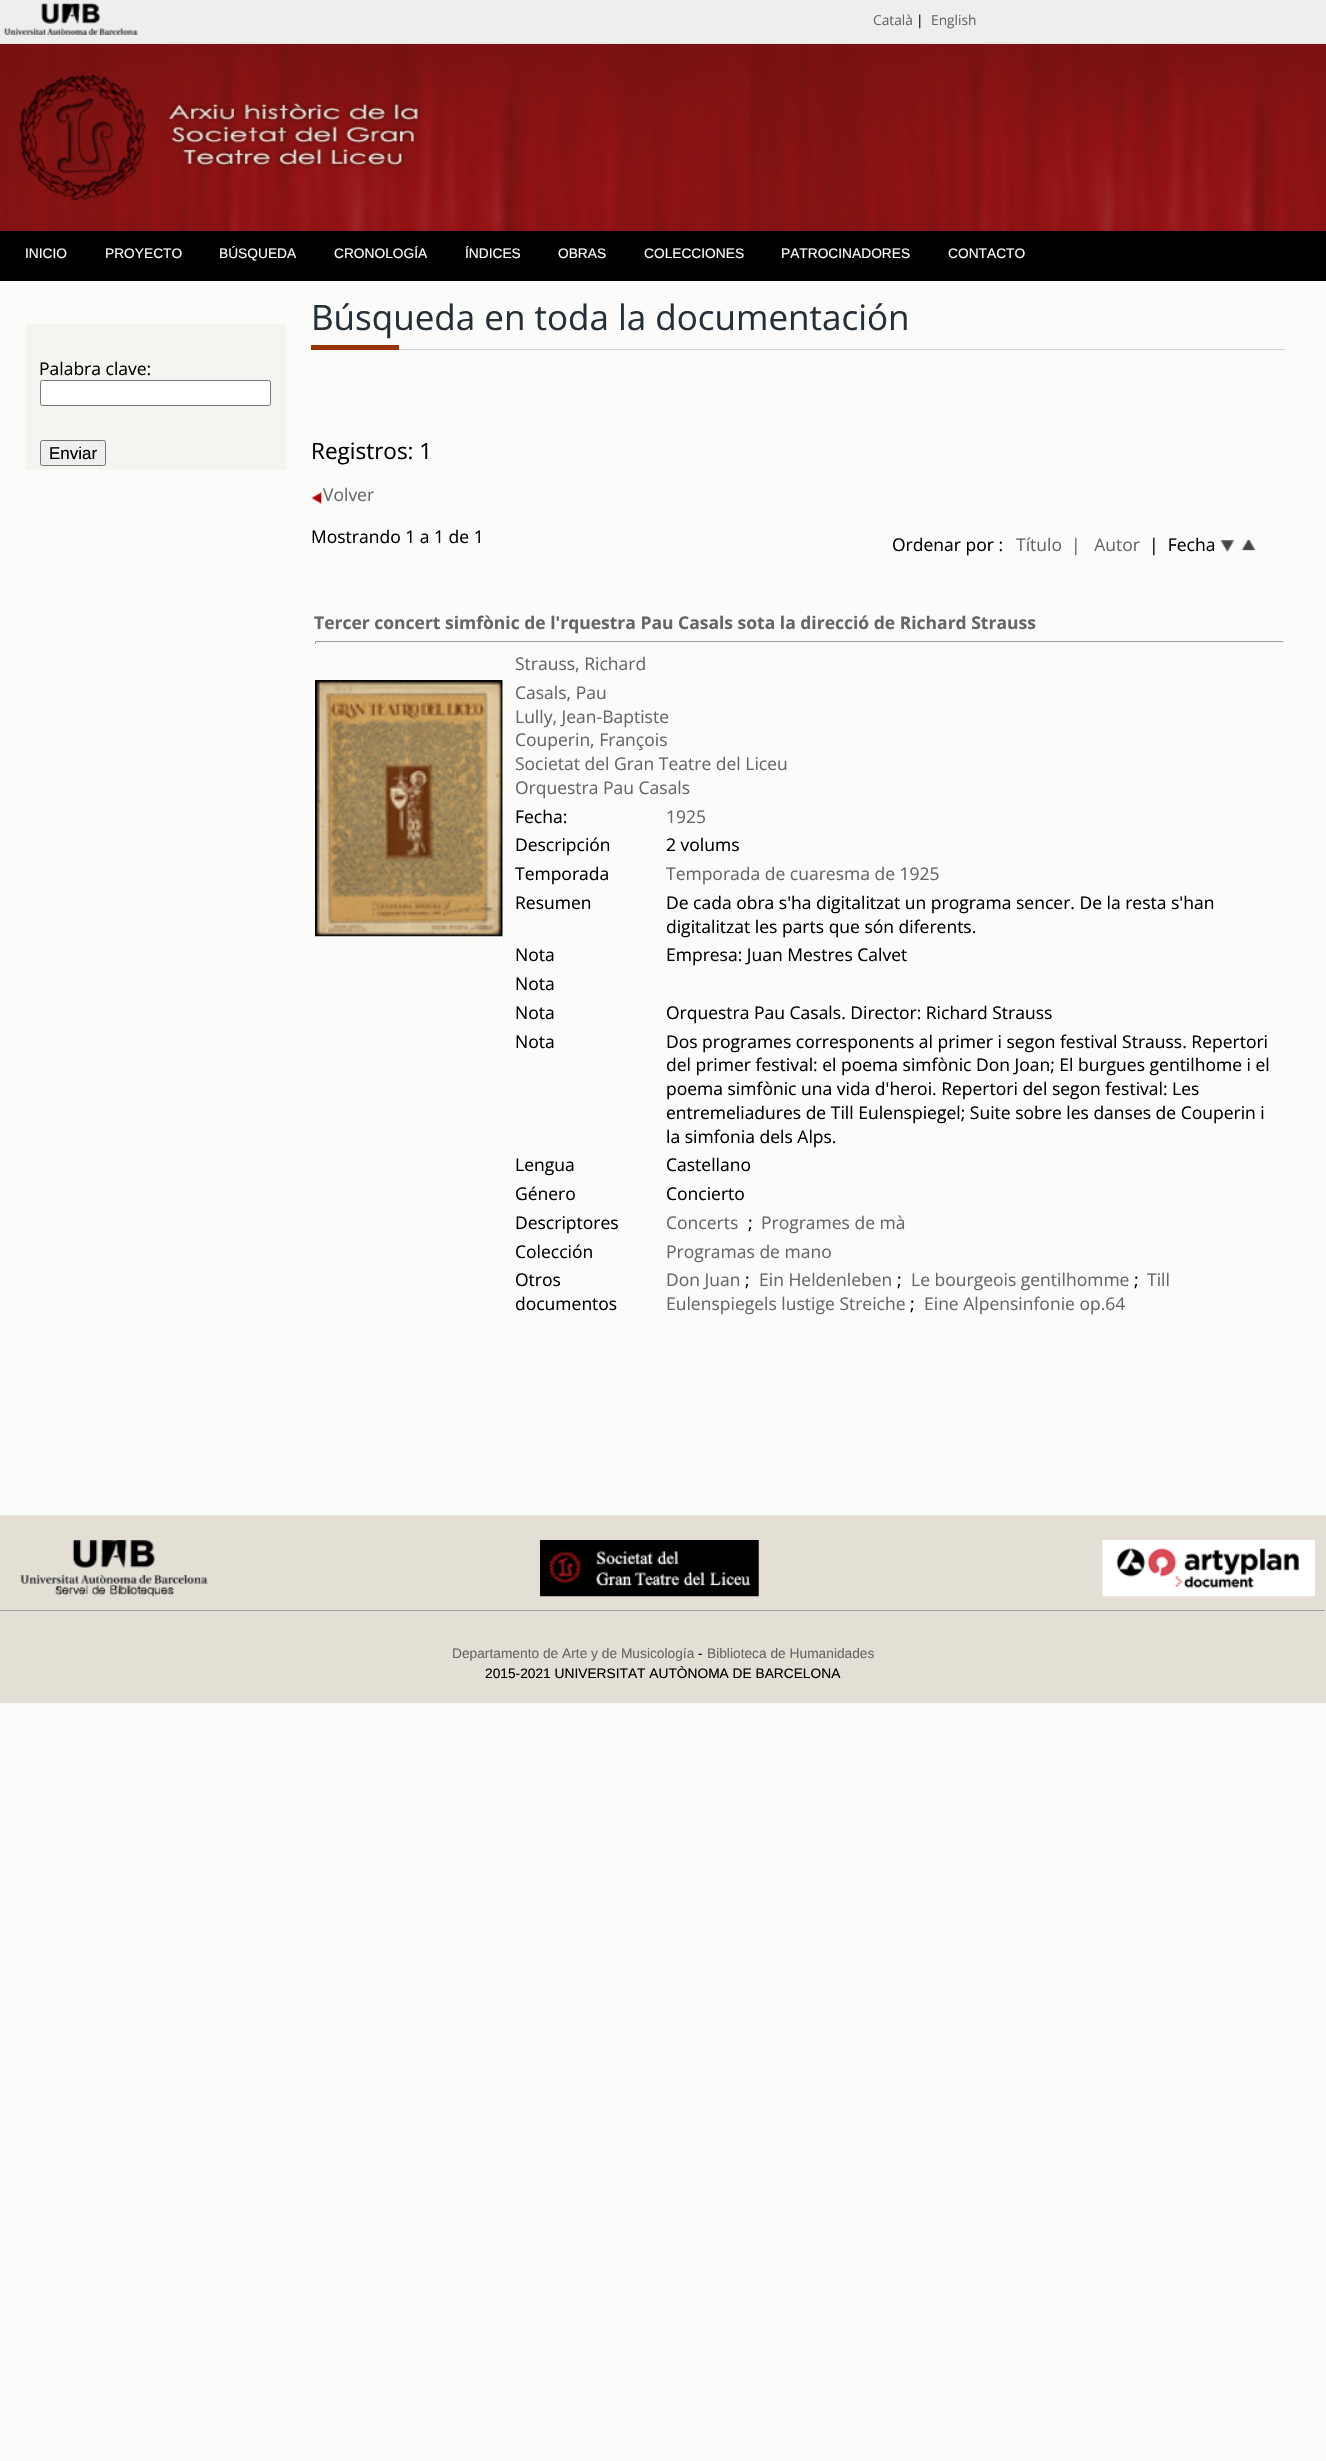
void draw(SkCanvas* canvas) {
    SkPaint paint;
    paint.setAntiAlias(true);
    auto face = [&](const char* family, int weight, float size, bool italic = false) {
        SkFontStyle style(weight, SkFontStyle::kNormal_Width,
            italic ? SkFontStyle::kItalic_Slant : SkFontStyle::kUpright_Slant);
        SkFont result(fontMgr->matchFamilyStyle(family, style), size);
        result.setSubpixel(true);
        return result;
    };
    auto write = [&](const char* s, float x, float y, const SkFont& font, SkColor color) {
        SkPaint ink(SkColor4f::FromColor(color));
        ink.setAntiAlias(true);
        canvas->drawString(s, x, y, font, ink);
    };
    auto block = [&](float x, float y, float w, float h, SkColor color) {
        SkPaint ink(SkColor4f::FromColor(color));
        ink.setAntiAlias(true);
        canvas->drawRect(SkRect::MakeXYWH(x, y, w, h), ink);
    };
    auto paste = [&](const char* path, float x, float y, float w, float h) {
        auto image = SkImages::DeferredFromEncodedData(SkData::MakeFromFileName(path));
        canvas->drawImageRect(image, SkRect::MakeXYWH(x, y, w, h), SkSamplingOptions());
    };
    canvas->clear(SkColorSetRGB(251, 251, 249));
    block(0, 0, 1326, 44, SkColorSetRGB(238, 238, 238));
    paste("pic1.png", 3, 3, 135, 32);
    auto kFont1 = face("Open Sans", 400, 13.75f);
    write("Català", 873, 25, kFont1, SkColorSetRGB(102, 102, 102));
    write("|", 916, 25, kFont1, SK_ColorBLACK);
    write("English", 931, 25, kFont1, SkColorSetRGB(102, 102, 102));
    block(0, 44, 1326, 187, SkColorSetRGB(140, 21, 21));
    paste("pic2.png", 0, 43, 1326, 188);
    paste("pic3.png", 19, 74, 402, 127);
    block(0, 231, 1326, 50, SK_ColorBLACK);
    auto kFont2 = face("Liberation Sans", 400, 13.75f);
    write("INICIO", 25, 258, kFont2, SkColorSetRGB(251, 251, 249));
    write("PROYECTO", 105, 258, kFont2, SkColorSetRGB(251, 251, 249));
    write("BÚSQUEDA", 219, 258, kFont2, SkColorSetRGB(251, 251, 249));
    write("CRONOLOGÍA", 334, 258, kFont2, SkColorSetRGB(251, 251, 249));
    write("ÍNDICES", 465, 258, kFont2, SkColorSetRGB(251, 251, 249));
    write("OBRAS", 558, 258, kFont2, SkColorSetRGB(251, 251, 249));
    write("COLECCIONES", 644, 258, kFont2, SkColorSetRGB(251, 251, 249));
    write("PATROCINADORES", 781, 258, kFont2, SkColorSetRGB(251, 251, 249));
    write("CONTACTO", 948, 258, kFont2, SkColorSetRGB(251, 251, 249));
    block(26, 324, 260, 146, SkColorSetRGB(245, 244, 241));
    auto kFont3 = face("Open Sans", 400, 17.5f);
    write("Palabra clave:", 39, 375, kFont3, SK_ColorBLACK);
    paint.setColor(SK_ColorWHITE);
    canvas->drawRoundRect(SkRect::MakeXYWH(40.5f, 380.5f, 230, 25), 2, 2, paint);
    paint.setStyle(SkPaint::kStroke_Style);
    paint.setStrokeWidth(1);
    paint.setColor(SkColorSetRGB(118, 118, 118));
    canvas->drawRoundRect(SkRect::MakeXYWH(40.5f, 380.5f, 230, 25), 2, 2, paint);
    paint.setStyle(SkPaint::kFill_Style);
    paint.setColor(SkColorSetRGB(239, 239, 239));
    canvas->drawRoundRect(SkRect::MakeXYWH(40.5f, 440.5f, 65, 25), 2, 2, paint);
    paint.setStyle(SkPaint::kStroke_Style);
    paint.setColor(SkColorSetRGB(118, 118, 118));
    canvas->drawRoundRect(SkRect::MakeXYWH(40.5f, 440.5f, 65, 25), 2, 2, paint);
    auto kFont4 = face("Liberation Sans", 400, 17);
    write("Enviar", 49, 459, kFont4, SK_ColorBLACK);
    auto kFont5 = face("Open Sans", 400, 35);
    write("Búsqueda en toda la documentación", 311, 330, kFont5, SkColorSetRGB(37, 47, 56));
    block(399, 349, 886, 1, SkColorSetRGB(205, 209, 208));
    block(311, 345, 88, 5, SkColorSetRGB(153, 51, 0));
    auto kFont6 = face("Open Sans", 400, 22.5f);
    write("Registros: 1", 311, 459, kFont6, SK_ColorBLACK);
    paste("pic4.png", 311, 492, 11, 12);
    write("Volver", 323, 501, kFont3, SkColorSetRGB(102, 102, 102));
    write("Mostrando 1 a 1 de 1", 311, 543, kFont3, SK_ColorBLACK);
    write("Ordenar por :", 892, 551, kFont3, SK_ColorBLACK);
    write("Título", 1016, 551, kFont3, SkColorSetRGB(102, 102, 102));
    write("|   Autor", 1071, 551, kFont3, SkColorSetRGB(102, 102, 102));
    write("|  Fecha", 1149, 551, kFont3, SK_ColorBLACK);
    paste("pic5.png", 1220, 540, 14, 12);
    paste("pic6.png", 1242, 540, 14, 11);
    auto kFont7 = face("Open Sans", 700, 17.5f);
    write("Tercer concert simfònic de l'rquestra Pau Casals sota la direcció de Richard Strauss", 314, 629, kFont7, SkColorSetRGB(102, 102, 102));
    block(315, 641, 969, 1, SkColorSetRGB(159, 159, 159));
    block(1283, 641, 1, 3, SkColorSetRGB(238, 238, 238));
    block(315, 641, 1, 3, SkColorSetRGB(159, 159, 159));
    write("Strauss, Richard", 515, 670, kFont3, SkColorSetRGB(102, 102, 102));
    paste("pic7.png", 315, 680, 188, 257);
    write("Casals, Pau", 515, 699, kFont3, SkColorSetRGB(102, 102, 102));
    write("Lully, Jean-Baptiste", 515, 723, kFont3, SkColorSetRGB(102, 102, 102));
    write("Couperin, François", 515, 746, kFont3, SkColorSetRGB(102, 102, 102));
    write("Societat del Gran Teatre del Liceu", 515, 770, kFont3, SkColorSetRGB(102, 102, 102));
    write("Orquestra Pau Casals", 515, 794, kFont3, SkColorSetRGB(102, 102, 102));
    write("Fecha:", 515, 823, kFont3, SK_ColorBLACK);
    write("1925", 666, 823, kFont3, SkColorSetRGB(102, 102, 102));
    write("Descripción", 515, 851, kFont3, SK_ColorBLACK);
    write("2 volums", 666, 851, kFont3, SK_ColorBLACK);
    write("Temporada", 515, 880, kFont3, SK_ColorBLACK);
    write("Temporada de cuaresma de 1925", 666, 880, kFont3, SkColorSetRGB(102, 102, 102));
    write("Resumen", 515, 909, kFont3, SK_ColorBLACK);
    write("De cada obra s'ha digitalitzat un programa sencer. De la resta s'han", 666, 909, kFont3, SK_ColorBLACK);
    write("digitalitzat les parts que són diferents.", 666, 933, kFont3, SK_ColorBLACK);
    write("Nota", 515, 961, kFont3, SK_ColorBLACK);
    write("Empresa: Juan Mestres Calvet", 666, 961, kFont3, SK_ColorBLACK);
    write("Nota", 515, 990, kFont3, SK_ColorBLACK);
    write("Nota", 515, 1019, kFont3, SK_ColorBLACK);
    write("Orquestra Pau Casals. Director: Richard Strauss", 666, 1019, kFont3, SK_ColorBLACK);
    write("Nota", 515, 1048, kFont3, SK_ColorBLACK);
    write("Dos programes corresponents al primer i segon festival Strauss. Repertori", 666, 1048, kFont3, SK_ColorBLACK);
    write("del primer festival: el poema simfònic Don Joan; El burgues gentilhome i el", 666, 1071, kFont3, SK_ColorBLACK);
    write("poema simfònic una vida d'heroi. Repertori del segon festival: Les", 666, 1095, kFont3, SK_ColorBLACK);
    write("entremeliadures de Till Eulenspiegel; Suite sobre les danses de Couperin i", 666, 1119, kFont3, SK_ColorBLACK);
    write("la simfonia dels Alps.", 666, 1143, kFont3, SK_ColorBLACK);
    write("Lengua", 515, 1171, kFont3, SK_ColorBLACK);
    write("Castellano", 666, 1171, kFont3, SK_ColorBLACK);
    write("Género", 515, 1200, kFont3, SK_ColorBLACK);
    write("Concierto", 666, 1200, kFont3, SK_ColorBLACK);
    write("Descriptores", 515, 1229, kFont3, SK_ColorBLACK);
    write("Concerts", 666, 1229, kFont3, SkColorSetRGB(102, 102, 102));
    write(";", 748, 1229, kFont3, SK_ColorBLACK);
    write("Programes de mà", 761, 1229, kFont3, SkColorSetRGB(102, 102, 102));
    write("Colección", 515, 1258, kFont3, SK_ColorBLACK);
    write("Programas de mano", 666, 1258, kFont3, SkColorSetRGB(102, 102, 102));
    write("Otros", 515, 1286, kFont3, SK_ColorBLACK);
    write("documentos", 515, 1310, kFont3, SK_ColorBLACK);
    write("Don Juan", 666, 1286, kFont3, SkColorSetRGB(102, 102, 102));
    write(";", 745, 1286, kFont3, SK_ColorBLACK);
    write("Ein Heldenleben", 759, 1286, kFont3, SkColorSetRGB(102, 102, 102));
    write(";", 897, 1286, kFont3, SK_ColorBLACK);
    write("Le bourgeois gentilhomme", 911, 1286, kFont3, SkColorSetRGB(102, 102, 102));
    write(";", 1134, 1286, kFont3, SK_ColorBLACK);
    write("Till", 1147, 1286, kFont3, SkColorSetRGB(102, 102, 102));
    write("Eulenspiegels lustige Streiche", 666, 1310, kFont3, SkColorSetRGB(102, 102, 102));
    write(";", 910, 1310, kFont3, SK_ColorBLACK);
    write("Eine Alpensinfonie op.64", 924, 1310, kFont3, SkColorSetRGB(102, 102, 102));
    block(0, 1515, 1326, 188, SkColorSetRGB(227, 223, 213));
    paste("pic8.png", 20, 1540, 188, 57);
    paste("pic9.png", 540, 1540, 219, 57);
    paste("pic10.png", 1102, 1540, 213, 57);
    block(0, 1610, 1326, 1, SkColorSetRGB(159, 159, 159));
    block(1325, 1610, 1, 1, SkColorSetRGB(238, 238, 238));
    write("Departamento de Arte y de Musicología", 452, 1658, kFont2, SkColorSetRGB(102, 102, 102));
    write("-", 698, 1658, kFont2, SK_ColorBLACK);
    write("Biblioteca de Humanidades", 707, 1658, kFont2, SkColorSetRGB(102, 102, 102));
    write("2015-2021 UNIVERSITAT AUTÒNOMA DE BARCELONA", 485, 1678, kFont2, SK_ColorBLACK);
}
